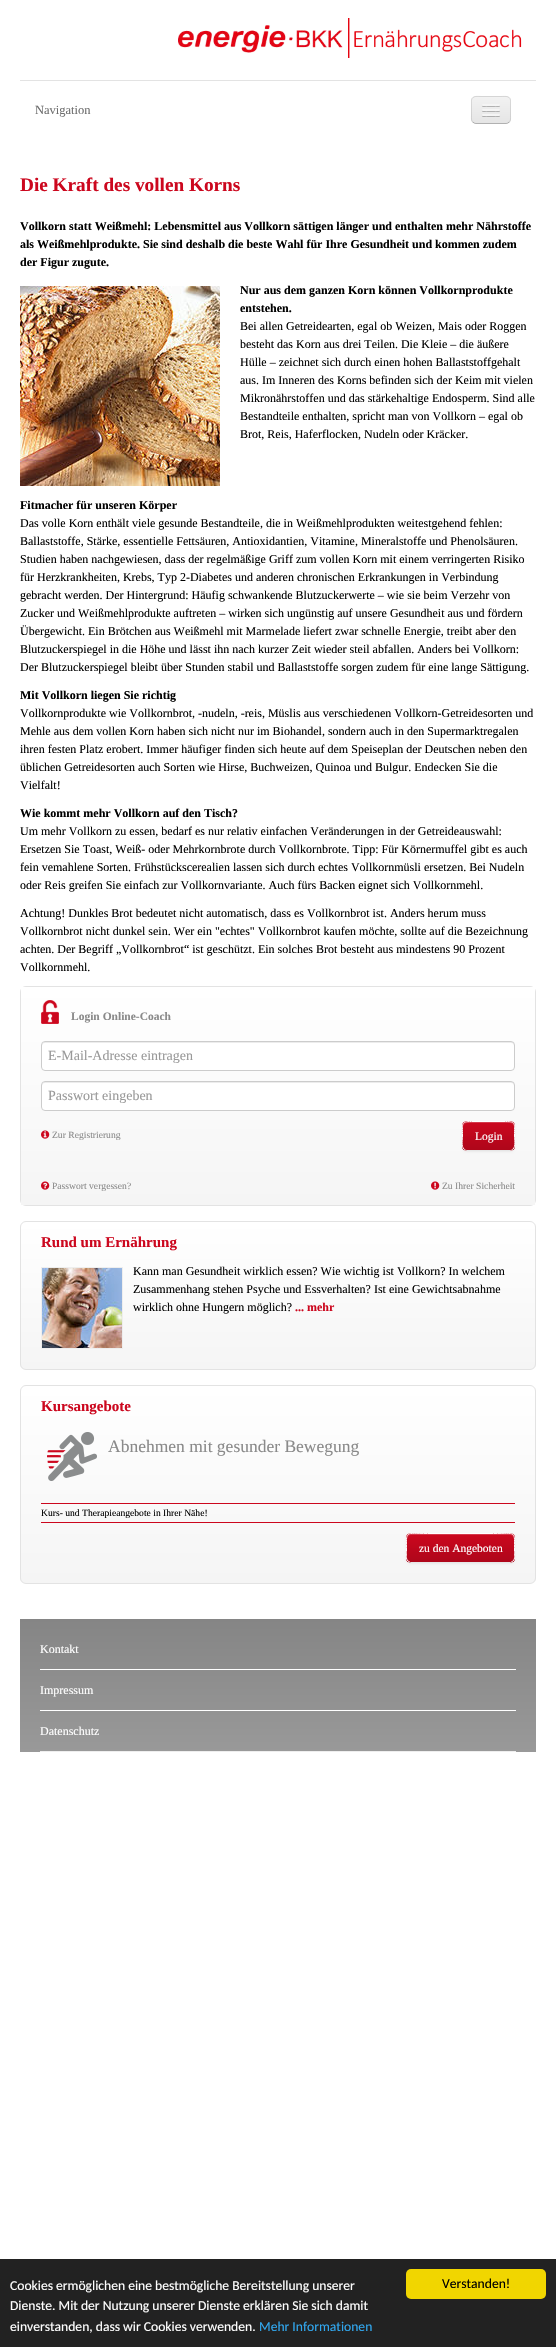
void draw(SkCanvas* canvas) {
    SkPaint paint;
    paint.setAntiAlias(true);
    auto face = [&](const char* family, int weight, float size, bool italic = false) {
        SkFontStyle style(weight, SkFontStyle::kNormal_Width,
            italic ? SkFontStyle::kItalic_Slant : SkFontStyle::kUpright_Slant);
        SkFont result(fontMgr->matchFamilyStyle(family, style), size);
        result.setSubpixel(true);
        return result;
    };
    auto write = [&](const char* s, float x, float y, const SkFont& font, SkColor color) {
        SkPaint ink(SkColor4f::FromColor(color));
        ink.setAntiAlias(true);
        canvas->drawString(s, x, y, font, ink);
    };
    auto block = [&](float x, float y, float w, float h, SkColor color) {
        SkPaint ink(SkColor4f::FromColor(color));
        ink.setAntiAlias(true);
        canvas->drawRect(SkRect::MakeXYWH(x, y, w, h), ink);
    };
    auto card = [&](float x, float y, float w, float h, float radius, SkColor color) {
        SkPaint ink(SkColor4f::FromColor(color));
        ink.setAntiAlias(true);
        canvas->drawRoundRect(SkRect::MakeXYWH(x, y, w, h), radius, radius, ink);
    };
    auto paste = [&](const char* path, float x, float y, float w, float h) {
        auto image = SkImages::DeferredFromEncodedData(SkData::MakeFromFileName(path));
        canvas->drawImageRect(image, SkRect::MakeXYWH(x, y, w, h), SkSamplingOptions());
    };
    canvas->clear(SK_ColorWHITE);
    block(20, 80, 516, 1, SkColorSetRGB(227, 227, 227));
    paste("pic1.png", 178, 18, 344, 40);
    auto kFont1 = face("Liberation Serif", 400, 12.5f);
    write("Navigation", 35, 114, kFont1, SkColorSetRGB(109, 109, 109));
    card(471, 96, 40, 28, 5, SkColorSetRGB(237, 237, 237));
    canvas->save();
    canvas->clipPath(SkPathBuilder().moveTo(476, 96).lineTo(506, 96).cubicTo(509, 96, 511, 98, 511, 101).lineTo(511, 119).cubicTo(511, 122, 509, 124, 506, 124).lineTo(476, 124).cubicTo(473, 124, 471, 122, 471, 119).lineTo(471, 101).cubicTo(471, 98, 473, 96, 476, 96).close().detach(), true);
    {
        const SkColor colors[] = {SkColorSetRGB(242, 242, 242), SkColorSetRGB(229, 229, 229)};
        const float stops[] = {0, 1};
        const SkPoint ends[] = {{491, 97}, {491, 123}};
        paint.setShader(SkGradientShader::MakeLinear(ends, colors, stops, 2, SkTileMode::kClamp));
        paint.setAlpha(255);
    }
    canvas->drawRect(SkRect::MakeXYWH(471, 97, 40, 26), paint);
    canvas->restore();
    paint.setStyle(SkPaint::kStroke_Style);
    paint.setStrokeWidth(1);
    paint.setShader(nullptr);
    paint.setColor(SkColorSetARGB(64, 0, 0, 0));
    canvas->drawPath(SkPathBuilder().moveTo(509, 122).cubicTo(508.5f, 123, 507, 123.5f, 506, 123.5f).lineTo(476, 123.5f).cubicTo(475, 123.5f, 473.5f, 123, 473, 122).detach(), paint);
    paint.setColor(SkColorSetARGB(26, 0, 0, 0));
    canvas->drawPath(SkPathBuilder().moveTo(473, 122).cubicTo(471, 120.5f, 471.5f, 118, 471.5f, 116).lineTo(471.5f, 100).cubicTo(472.5f, 95.5f, 477.5f, 96.5f, 481, 96.5f).lineTo(501, 96.5f).cubicTo(504.5f, 96.5f, 509.5f, 95.5f, 510.5f, 100).lineTo(510.5f, 116).cubicTo(510.5f, 118, 511, 120.5f, 509, 122).detach(), paint);
    paint.setStyle(SkPaint::kFill_Style);
    paint.setColor(SkColorSetRGB(178, 178, 178));
    canvas->drawPath(SkPathBuilder().moveTo(482, 105.5f).cubicTo(481, 107.5f, 485.5f, 107, 485.5f, 107).lineTo(496.5f, 107).cubicTo(496.5f, 107, 501, 107.5f, 500, 105.5f).cubicTo(499, 106.5f, 492.5f, 106, 491, 106).cubicTo(489.5f, 106, 483, 106.5f, 482, 105.5f).close().detach(), paint);
    card(482, 104, 18, 2, 1, SkColorSetRGB(245, 245, 245));
    paint.setColor(SkColorSetRGB(176, 176, 176));
    canvas->drawPath(SkPathBuilder().moveTo(482, 110.5f).cubicTo(481, 112.5f, 485.5f, 112, 485.5f, 112).lineTo(496.5f, 112).cubicTo(496.5f, 112, 501, 112.5f, 500, 110.5f).cubicTo(499, 111.5f, 492.5f, 111, 491, 111).cubicTo(489.5f, 111, 483, 111.5f, 482, 110.5f).close().detach(), paint);
    card(482, 109, 18, 2, 1, SkColorSetRGB(245, 245, 245));
    paint.setColor(SkColorSetRGB(174, 174, 174));
    canvas->drawPath(SkPathBuilder().moveTo(482, 115.5f).cubicTo(481, 117.5f, 485.5f, 117, 485.5f, 117).lineTo(496.5f, 117).cubicTo(496.5f, 117, 501, 117.5f, 500, 115.5f).cubicTo(499, 116.5f, 492.5f, 116, 491, 116).cubicTo(489.5f, 116, 483, 116.5f, 482, 115.5f).close().detach(), paint);
    card(482, 114, 18, 2, 1, SkColorSetRGB(245, 245, 245));
    auto kFont2 = face("Liberation Serif", 700, 19.25f);
    write("Die Kraft des vollen Korns", 20, 191, kFont2, SkColorSetRGB(204, 7, 30));
    auto kFont3 = face("Liberation Serif", 700, 12);
    write("Vollkorn statt Weißmehl: Lebensmittel aus Vollkorn sättigen länger und enthalten mehr Nährstoffe", 20, 230, kFont3, SK_ColorBLACK);
    write("als Weißmehlprodukte. Sie sind deshalb die beste Wahl für Ihre Gesundheit und kommen zudem", 20, 248, kFont3, SK_ColorBLACK);
    write("der Figur zugute.", 20, 266, kFont3, SK_ColorBLACK);
    paste("pic2.png", 20, 286, 200, 200);
    write("Nur aus dem ganzen Korn können Vollkornprodukte", 240, 294, kFont3, SK_ColorBLACK);
    write("entstehen.", 240, 312, kFont3, SK_ColorBLACK);
    auto kFont4 = face("Liberation Serif", 400, 12);
    write("Bei allen Getreidearten, egal ob Weizen, Mais oder Roggen", 240, 330, kFont4, SK_ColorBLACK);
    write("besteht das Korn aus drei Teilen. Die Kleie – die äußere", 240, 348, kFont4, SK_ColorBLACK);
    write("Hülle – zeichnet sich durch einen hohen Ballaststoffgehalt", 240, 366, kFont4, SK_ColorBLACK);
    write("aus. Im Inneren des Korns befinden sich der Keim mit vielen", 240, 384, kFont4, SK_ColorBLACK);
    write("Mikronährstoffen und das stärkehaltige Endosperm. Sind alle", 240, 402, kFont4, SK_ColorBLACK);
    write("Bestandteile enthalten, spricht man von Vollkorn – egal ob", 240, 420, kFont4, SK_ColorBLACK);
    write("Brot, Reis, Haferflocken, Nudeln oder Kräcker.", 240, 438, kFont4, SK_ColorBLACK);
    write("Fitmacher für unseren Körper", 20, 509, kFont3, SK_ColorBLACK);
    write("Das volle Korn enthält viele gesunde Bestandteile, die in Weißmehlprodukten weitestgehend fehlen:", 20, 527, kFont4, SK_ColorBLACK);
    write("Ballaststoffe, Stärke, essentielle Fettsäuren, Antioxidantien, Vitamine, Mineralstoffe und Phenolsäuren.", 20, 545, kFont4, SK_ColorBLACK);
    write("Studien haben nachgewiesen, dass der regelmäßige Griff zum vollen Korn mit einem verringerten Risiko", 20, 563, kFont4, SK_ColorBLACK);
    write("für Herzkrankheiten, Krebs, Typ 2-Diabetes und anderen chronischen Erkrankungen in Verbindung", 20, 581, kFont4, SK_ColorBLACK);
    write("gebracht werden. Der Hintergrund: Häufig schwankende Blutzuckerwerte – wie sie beim Verzehr von", 20, 599, kFont4, SK_ColorBLACK);
    write("Zucker und Weißmehlprodukte auftreten – wirken sich ungünstig auf unsere Gesundheit aus und fördern", 20, 617, kFont4, SK_ColorBLACK);
    write("Übergewicht. Ein Brötchen aus Weißmehl mit Marmelade liefert zwar schnelle Energie, treibt aber den", 20, 635, kFont4, SK_ColorBLACK);
    write("Blutzuckerspiegel in die Höhe und lässt ihn nach kurzer Zeit wieder steil abfallen. Anders bei Vollkorn:", 20, 653, kFont4, SK_ColorBLACK);
    write("Der Blutzuckerspiegel bleibt über Stunden stabil und Ballaststoffe sorgen zudem für eine lange Sättigung.", 20, 671, kFont4, SK_ColorBLACK);
    write("Mit Vollkorn liegen Sie richtig", 20, 699, kFont3, SK_ColorBLACK);
    write("Vollkornprodukte wie Vollkornbrot, -nudeln, -reis, Müslis aus verschiedenen Vollkorn-Getreidesorten und", 20, 717, kFont4, SK_ColorBLACK);
    write("Mehle aus dem vollen Korn haben sich nicht nur im Biohandel, sondern auch in den Supermarktregalen", 20, 735, kFont4, SK_ColorBLACK);
    write("ihren festen Platz erobert. Immer häufiger finden sich heute auf dem Speiseplan der Deutschen neben den", 20, 753, kFont4, SK_ColorBLACK);
    write("üblichen Getreidesorten auch Sorten wie Hirse, Buchweizen, Quinoa und Bulgur. Endecken Sie die", 20, 771, kFont4, SK_ColorBLACK);
    write("Vielfalt!", 20, 789, kFont4, SK_ColorBLACK);
    write("Wie kommt mehr Vollkorn auf den Tisch?", 20, 817, kFont3, SK_ColorBLACK);
    write("Um mehr Vollkorn zu essen, bedarf es nur relativ einfachen Veränderungen in der Getreideauswahl:", 20, 835, kFont4, SK_ColorBLACK);
    write("Ersetzen Sie Toast, Weiß- oder Mehrkornbrote durch Vollkornbrote. Tipp: Für Körnermuffel gibt es auch", 20, 853, kFont4, SK_ColorBLACK);
    write("fein vemahlene Sorten. Frühstückscerealien lassen sich durch echtes Vollkornmüsli ersetzen. Bei Nudeln", 20, 871, kFont4, SK_ColorBLACK);
    write("oder Reis greifen Sie einfach zur Vollkornvariante. Auch fürs Backen eignet sich Vollkornmehl.", 20, 889, kFont4, SK_ColorBLACK);
    write("Achtung! Dunkles Brot bedeutet nicht automatisch, dass es Vollkornbrot ist. Anders herum muss", 20, 917, kFont4, SK_ColorBLACK);
    write("Vollkornbrot nicht dunkel sein. Wer ein \"echtes\" Vollkornbrot kaufen möchte, sollte auf die Bezeichnung", 20, 935, kFont4, SK_ColorBLACK);
    write("achten. Der Begriff „Vollkornbrot“ ist geschützt. Ein solches Brot besteht aus mindestens 90 Prozent", 20, 953, kFont4, SK_ColorBLACK);
    write("Vollkornmehl.", 20, 971, kFont4, SK_ColorBLACK);
    paint.setStyle(SkPaint::kStroke_Style);
    paint.setColor(SkColorSetRGB(227, 227, 227));
    canvas->drawRoundRect(SkRect::MakeXYWH(20.5f, 986.5f, 515, 219), 5.5f, 5.5f, paint);
    paint.setStyle(SkPaint::kFill_Style);
    {
        const SkColor colors[] = {SK_ColorWHITE, SkColorSetRGB(245, 245, 245)};
        const float stops[] = {0, 1};
        const SkPoint ends[] = {{278, 987}, {278, 1205}};
        paint.setShader(SkGradientShader::MakeLinear(ends, colors, stops, 2, SkTileMode::kClamp));
        paint.setAlpha(255);
    }
    canvas->drawRect(SkRect::MakeXYWH(21, 987, 514, 218), paint);
    paste("pic3.png", 41, 1000, 18, 24);
    auto kFont5 = face("Liberation Serif", 700, 11.5f);
    write("Login Online-Coach", 71, 1020, kFont5, SkColorSetRGB(138, 138, 138));
    card(41, 1041, 474, 30, 4, SK_ColorWHITE);
    paint.setShader(nullptr);
    paint.setColor(SkColorSetRGB(236, 236, 236));
    canvas->drawPath(SkPathBuilder().moveTo(45, 1043).lineTo(511, 1043).cubicTo(513, 1043, 514, 1044, 514, 1046).cubicTo(514, 1044, 514, 1042, 512, 1042).lineTo(44, 1042).lineTo(42, 1044).lineTo(42, 1046).cubicTo(42, 1044, 43, 1043, 45, 1043).close().detach(), paint);
    paint.setStyle(SkPaint::kStroke_Style);
    paint.setColor(SkColorSetRGB(204, 204, 204));
    canvas->drawRoundRect(SkRect::MakeXYWH(41.5f, 1041.5f, 473, 29), 3.5f, 3.5f, paint);
    auto kFont6 = face("Liberation Serif", 400, 14);
    write("E-Mail-Adresse eintragen", 48, 1060, kFont6, SkColorSetRGB(153, 153, 153));
    card(41, 1081, 474, 30, 4, SK_ColorWHITE);
    paint.setStyle(SkPaint::kFill_Style);
    paint.setColor(SkColorSetRGB(236, 236, 236));
    canvas->drawPath(SkPathBuilder().moveTo(45, 1083).lineTo(511, 1083).cubicTo(513, 1083, 514, 1084, 514, 1086).cubicTo(514, 1084, 514, 1082, 512, 1082).lineTo(44, 1082).lineTo(42, 1084).lineTo(42, 1086).cubicTo(42, 1084, 43, 1083, 45, 1083).close().detach(), paint);
    paint.setStyle(SkPaint::kStroke_Style);
    paint.setColor(SkColorSetRGB(204, 204, 204));
    canvas->drawRoundRect(SkRect::MakeXYWH(41.5f, 1081.5f, 473, 29), 3.5f, 3.5f, paint);
    write("Passwort eingeben", 48, 1100, kFont6, SkColorSetRGB(153, 153, 153));
    paste("pic4.png", 41, 1130, 9, 9);
    auto kFont7 = face("Liberation Serif", 400, 9.6f);
    write("Zur Registrierung", 52, 1138, kFont7, SkColorSetRGB(138, 138, 138));
    paint.setStyle(SkPaint::kFill_Style);
    paint.setColor(SkColorSetARGB(13, 0, 0, 0));
    paint.setMaskFilter(SkMaskFilter::MakeBlur(kNormal_SkBlurStyle, 1));
    canvas->drawRoundRect(SkRect::MakeXYWH(462, 1122, 53, 30), 5, 5, paint);
    paint.setMaskFilter(nullptr);
    card(462, 1121, 53, 30, 5, SkColorSetRGB(192, 7, 28));
    canvas->save();
    canvas->clipPath(SkPathBuilder().moveTo(467, 1121).lineTo(510, 1121).cubicTo(513, 1121, 515, 1123, 515, 1126).lineTo(515, 1146).cubicTo(515, 1149, 513, 1151, 510, 1151).lineTo(467, 1151).cubicTo(464, 1151, 462, 1149, 462, 1146).lineTo(462, 1126).cubicTo(462, 1123, 464, 1121, 467, 1121).close().detach(), true);
    {
        const SkColor colors[] = {SkColorSetRGB(204, 7, 30), SkColorSetRGB(174, 6, 26)};
        const float stops[] = {0, 1};
        const SkPoint ends[] = {{489, 1122}, {489, 1150}};
        paint.setShader(SkGradientShader::MakeLinear(ends, colors, stops, 2, SkTileMode::kClamp));
        paint.setAlpha(255);
    }
    canvas->drawRect(SkRect::MakeXYWH(462, 1122, 53, 28), paint);
    canvas->restore();
    paint.setShader(nullptr);
    paint.setColor(SkColorSetRGB(213, 57, 75));
    canvas->drawPath(SkPathBuilder().moveTo(467, 1123).lineTo(510, 1123).cubicTo(512, 1123, 514, 1125, 514, 1127).cubicTo(514, 1121, 508, 1122, 503, 1122).lineTo(474, 1122).cubicTo(469, 1122, 463, 1121, 463, 1127).cubicTo(463, 1125, 465, 1123, 467, 1123).close().detach(), paint);
    paint.setStyle(SkPaint::kStroke_Style);
    paint.setColor(SkColorSetRGB(230, 230, 230));
    canvas->drawPath(SkPathBuilder().moveTo(513, 1149).cubicTo(512.5f, 1150, 511, 1150.5f, 510, 1150.5f).lineTo(467, 1150.5f).cubicTo(466, 1150.5f, 464.5f, 1150, 464, 1149).detach(), paint);
    paint.setColor(SK_ColorWHITE);
    canvas->drawPath(SkPathBuilder().moveTo(464, 1149).cubicTo(461, 1146.5f, 462.5f, 1139, 462.5f, 1136).cubicTo(462.5f, 1122, 460.5f, 1121.5f, 474, 1121.5f).lineTo(503, 1121.5f).cubicTo(516.5f, 1121.5f, 514.5f, 1122, 514.5f, 1136).cubicTo(514.5f, 1139, 516, 1146.5f, 513, 1149).detach(), paint);
    auto kFont8 = face("Liberation Serif", 400, 11.5f);
    write("Login", 475, 1140, kFont8, SK_ColorWHITE);
    paste("pic5.png", 41, 1181, 9, 9);
    write("Passwort vergessen?", 52, 1189, kFont7, SkColorSetRGB(138, 138, 138));
    paste("pic6.png", 431, 1181, 9, 9);
    write("Zu Ihrer Sicherheit", 442, 1189, kFont7, SkColorSetRGB(138, 138, 138));
    canvas->save();
    canvas->clipPath(SkPathBuilder().moveTo(26, 1221).lineTo(530, 1221).cubicTo(533.5f, 1221, 536, 1223.5f, 536, 1227).lineTo(536, 1364).cubicTo(536, 1367.5f, 533.5f, 1370, 530, 1370).lineTo(26, 1370).cubicTo(22.5f, 1370, 20, 1367.5f, 20, 1364).lineTo(20, 1227).cubicTo(20, 1223.5f, 22.5f, 1221, 26, 1221).close().detach(), true);
    paint.setStyle(SkPaint::kFill_Style);
    {
        const SkColor colors[] = {SK_ColorWHITE, SkColorSetRGB(245, 245, 245)};
        const float stops[] = {0, 1};
        const SkPoint ends[] = {{278, 1222}, {278, 1369}};
        paint.setShader(SkGradientShader::MakeLinear(ends, colors, stops, 2, SkTileMode::kClamp));
        paint.setAlpha(255);
    }
    canvas->drawRect(SkRect::MakeXYWH(20, 1222, 516, 147), paint);
    canvas->restore();
    paint.setStyle(SkPaint::kStroke_Style);
    paint.setShader(nullptr);
    paint.setColor(SkColorSetRGB(227, 227, 227));
    canvas->drawRoundRect(SkRect::MakeXYWH(20.5f, 1221.5f, 515, 148), 5.5f, 5.5f, paint);
    auto kFont9 = face("Liberation Serif", 700, 15);
    write("Rund um Ernährung", 41, 1247, kFont9, SkColorSetRGB(204, 7, 30));
    paint.setColor(SkColorSetRGB(238, 238, 238));
    canvas->drawRect(SkRect::MakeXYWH(41.5f, 1267.5f, 81, 81), paint);
    paste("pic7.png", 42, 1268, 80, 80);
    write("Kann man Gesundheit wirklich essen? Wie wichtig ist Vollkorn? In welchem", 133, 1275, kFont4, SK_ColorBLACK);
    write("Zusammenhang stehen Psyche und Essverhalten? Ist eine Gewichtsabnahme", 133, 1293, kFont4, SK_ColorBLACK);
    write("wirklich ohne Hungern möglich?", 133, 1311, kFont4, SK_ColorBLACK);
    write("... mehr", 295, 1311, kFont3, SkColorSetRGB(204, 7, 30));
    canvas->save();
    canvas->clipPath(SkPathBuilder().moveTo(26, 1385).lineTo(530, 1385).cubicTo(533.5f, 1385, 536, 1387.5f, 536, 1391).lineTo(536, 1578).cubicTo(536, 1581.5f, 533.5f, 1584, 530, 1584).lineTo(26, 1584).cubicTo(22.5f, 1584, 20, 1581.5f, 20, 1578).lineTo(20, 1391).cubicTo(20, 1387.5f, 22.5f, 1385, 26, 1385).close().detach(), true);
    paint.setStyle(SkPaint::kFill_Style);
    {
        const SkColor colors[] = {SK_ColorWHITE, SkColorSetRGB(245, 245, 245)};
        const float stops[] = {0, 1};
        const SkPoint ends[] = {{278, 1386}, {278, 1583}};
        paint.setShader(SkGradientShader::MakeLinear(ends, colors, stops, 2, SkTileMode::kClamp));
        paint.setAlpha(255);
    }
    canvas->drawRect(SkRect::MakeXYWH(20, 1386, 516, 197), paint);
    canvas->restore();
    paint.setStyle(SkPaint::kStroke_Style);
    paint.setShader(nullptr);
    paint.setColor(SkColorSetRGB(227, 227, 227));
    canvas->drawRoundRect(SkRect::MakeXYWH(20.5f, 1385.5f, 515, 198), 5.5f, 5.5f, paint);
    write("Kursangebote", 41, 1411, kFont9, SkColorSetRGB(204, 7, 30));
    paste("pic8.png", 47, 1432, 50, 49);
    auto kFont10 = face("Liberation Serif", 400, 17.5f);
    write("Abnehmen mit gesunder Bewegung", 108, 1452, kFont10, SkColorSetRGB(138, 138, 138));
    block(41, 1503, 474, 1, SkColorSetRGB(204, 7, 30));
    block(41, 1522, 474, 1, SkColorSetRGB(204, 7, 30));
    write("Kurs- und Therapieangebote in Ihrer Nähe!", 41, 1516, kFont7, SK_ColorBLACK);
    paint.setStyle(SkPaint::kFill_Style);
    paint.setColor(SkColorSetARGB(13, 0, 0, 0));
    paint.setMaskFilter(SkMaskFilter::MakeBlur(kNormal_SkBlurStyle, 1));
    canvas->drawRoundRect(SkRect::MakeXYWH(406, 1534, 109, 30), 5, 5, paint);
    paint.setMaskFilter(nullptr);
    card(406, 1533, 109, 30, 5, SkColorSetRGB(192, 7, 28));
    canvas->save();
    canvas->clipPath(SkPathBuilder().moveTo(411, 1533).lineTo(510, 1533).cubicTo(513, 1533, 515, 1535, 515, 1538).lineTo(515, 1558).cubicTo(515, 1561, 513, 1563, 510, 1563).lineTo(411, 1563).cubicTo(408, 1563, 406, 1561, 406, 1558).lineTo(406, 1538).cubicTo(406, 1535, 408, 1533, 411, 1533).close().detach(), true);
    {
        const SkColor colors[] = {SkColorSetRGB(204, 7, 30), SkColorSetRGB(174, 6, 26)};
        const float stops[] = {0, 1};
        const SkPoint ends[] = {{461, 1534}, {461, 1562}};
        paint.setShader(SkGradientShader::MakeLinear(ends, colors, stops, 2, SkTileMode::kClamp));
        paint.setAlpha(255);
    }
    canvas->drawRect(SkRect::MakeXYWH(406, 1534, 109, 28), paint);
    canvas->restore();
    paint.setShader(nullptr);
    paint.setColor(SkColorSetARGB(51, 255, 255, 255));
    canvas->drawPath(SkPathBuilder().moveTo(411, 1535).lineTo(510, 1535).cubicTo(512, 1535, 514, 1537, 514, 1539).cubicTo(514, 1530, 497, 1534, 494, 1534).lineTo(428, 1534).cubicTo(424, 1534, 407, 1530, 407, 1539).cubicTo(407, 1537, 409, 1535, 411, 1535).close().detach(), paint);
    paint.setStyle(SkPaint::kStroke_Style);
    paint.setColor(SkColorSetRGB(230, 230, 230));
    canvas->drawPath(SkPathBuilder().moveTo(513, 1561).lineTo(510.5f, 1562.5f).lineTo(410.5f, 1562.5f).lineTo(408, 1561).detach(), paint);
    canvas->save();
    canvas->clipRect(SkRect::MakeXYWH(41, 1426, 474, 147));
    paint.setColor(SK_ColorWHITE);
    canvas->drawPath(SkPathBuilder().moveTo(408, 1561).cubicTo(405.5f, 1559, 406.5f, 1554, 406.5f, 1551.5f).cubicTo(406.5f, 1530, 404, 1533.5f, 427.5f, 1533.5f).lineTo(493.5f, 1533.5f).cubicTo(517, 1533.5f, 514.5f, 1530, 514.5f, 1551.5f).cubicTo(514.5f, 1554, 515.5f, 1559, 513, 1561).detach(), paint);
    canvas->restore();
    write("zu den Angeboten", 419, 1552, kFont8, SK_ColorWHITE);
    paint.setStyle(SkPaint::kFill_Style);
    {
        const SkColor colors[] = {SkColorSetRGB(133, 133, 133), SkColorSetRGB(153, 153, 153)};
        const float stops[] = {0, 1};
        const SkPoint ends[] = {{278, 1619}, {278, 1752}};
        paint.setShader(SkGradientShader::MakeLinear(ends, colors, stops, 2, SkTileMode::kClamp));
        paint.setAlpha(255);
    }
    canvas->drawRect(SkRect::MakeXYWH(20, 1619, 516, 133), paint);
    write("Kontakt", 40, 1653, kFont4, SK_ColorWHITE);
    block(40, 1669, 476, 1, SK_ColorWHITE);
    write("Impressum", 40, 1694, kFont4, SK_ColorWHITE);
    block(40, 1710, 476, 1, SK_ColorWHITE);
    write("Datenschutz", 40, 1735, kFont4, SK_ColorWHITE);
    block(40, 1751, 476, 1, SkColorSetRGB(238, 238, 238));
    block(0, 2259, 556, 88, SkColorSetRGB(34, 34, 34));
    auto kFont11 = face("Carlito", 400, 13.6f);
    write("Cookies ermöglichen eine bestmögliche Bereitstellung unserer", 10, 2290, kFont11, SK_ColorWHITE);
    write("Dienste. Mit der Nutzung unserer Dienste erklären Sie sich damit", 10, 2310, kFont11, SK_ColorWHITE);
    write("einverstanden, dass wir Cookies verwenden.", 10, 2331, kFont11, SK_ColorWHITE);
    write("Mehr Informationen", 259, 2331, kFont11, SkColorSetRGB(49, 168, 240));
    card(406, 2269, 140, 30, 5, SkColorSetRGB(241, 214, 0));
    write("Verstanden!", 442, 2288, kFont11, SK_ColorBLACK);
}
